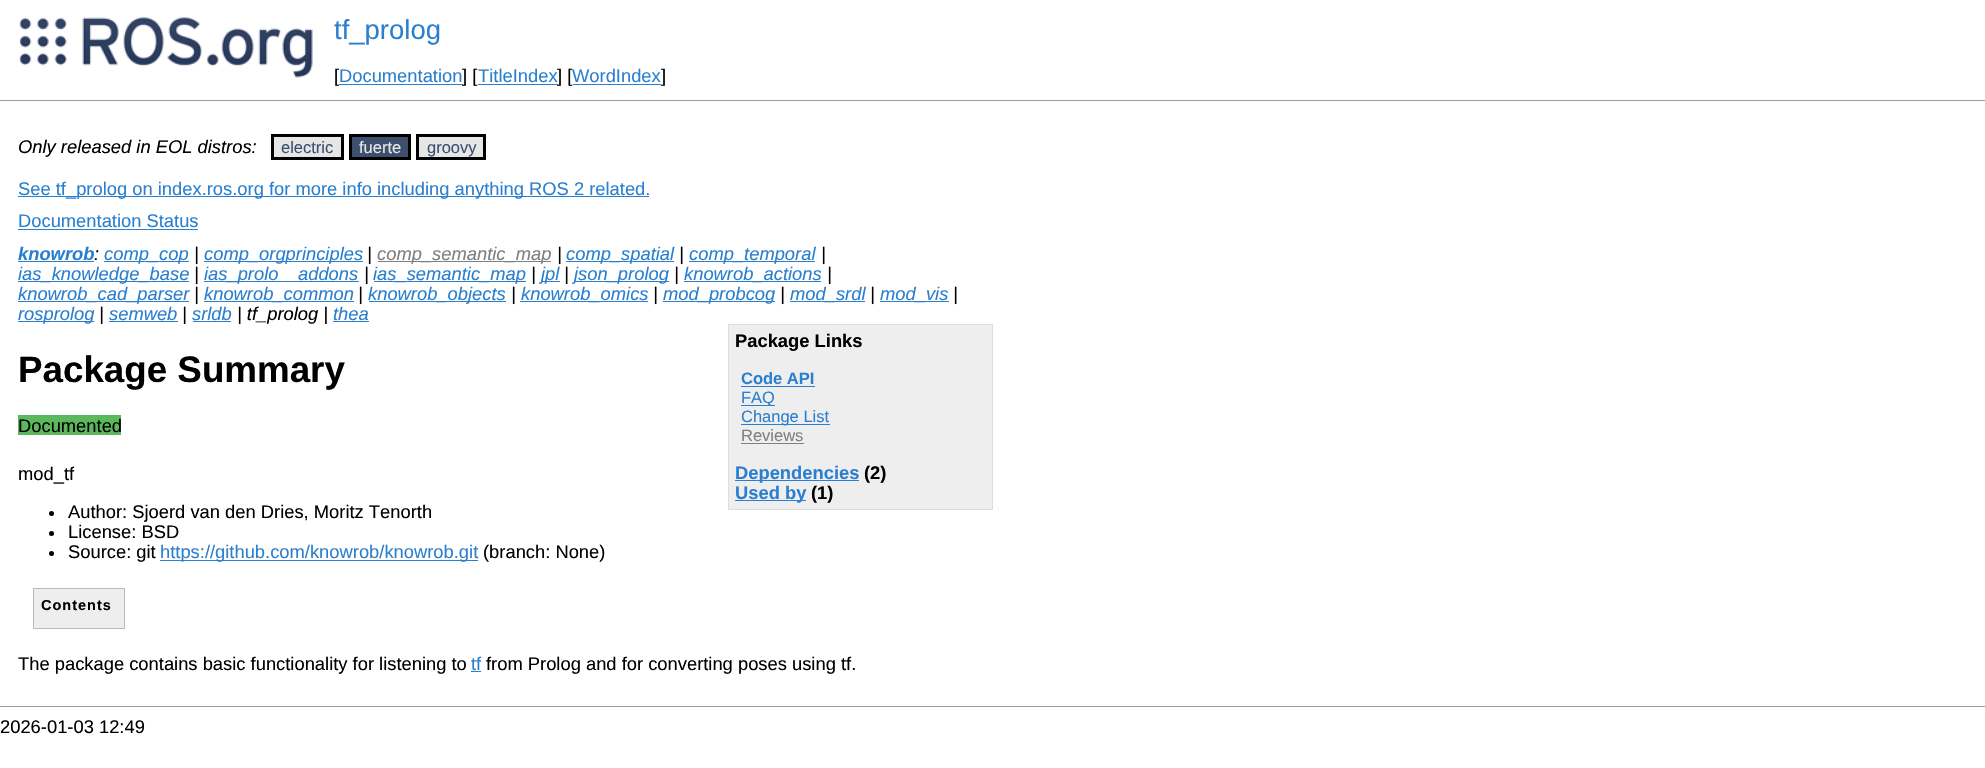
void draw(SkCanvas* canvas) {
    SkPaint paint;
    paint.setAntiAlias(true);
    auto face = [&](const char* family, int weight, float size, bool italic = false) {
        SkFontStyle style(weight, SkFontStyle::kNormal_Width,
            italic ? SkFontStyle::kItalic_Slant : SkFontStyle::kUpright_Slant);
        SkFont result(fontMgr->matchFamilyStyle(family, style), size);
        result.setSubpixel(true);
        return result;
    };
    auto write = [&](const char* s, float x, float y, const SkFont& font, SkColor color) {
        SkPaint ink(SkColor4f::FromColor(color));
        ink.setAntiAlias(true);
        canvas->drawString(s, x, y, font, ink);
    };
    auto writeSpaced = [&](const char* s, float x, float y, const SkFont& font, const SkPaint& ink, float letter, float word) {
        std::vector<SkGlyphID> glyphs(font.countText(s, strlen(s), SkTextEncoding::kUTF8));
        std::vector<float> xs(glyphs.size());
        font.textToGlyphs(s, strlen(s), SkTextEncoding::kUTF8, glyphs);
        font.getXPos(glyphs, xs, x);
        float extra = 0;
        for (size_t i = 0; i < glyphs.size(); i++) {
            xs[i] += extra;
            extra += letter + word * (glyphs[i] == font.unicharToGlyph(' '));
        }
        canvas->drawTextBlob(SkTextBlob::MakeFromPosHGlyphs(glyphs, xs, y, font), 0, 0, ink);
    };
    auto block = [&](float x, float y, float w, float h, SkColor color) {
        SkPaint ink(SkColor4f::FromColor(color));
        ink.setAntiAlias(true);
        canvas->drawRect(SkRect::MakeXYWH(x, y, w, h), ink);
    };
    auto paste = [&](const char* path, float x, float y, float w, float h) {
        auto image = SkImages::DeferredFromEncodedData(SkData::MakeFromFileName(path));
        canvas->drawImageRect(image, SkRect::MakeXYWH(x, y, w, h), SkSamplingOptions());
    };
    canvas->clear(SK_ColorWHITE);
    paste("pic1.png", 19, 17, 294, 61);
    auto kFont1 = face("Liberation Sans", 400, 27.5f);
    write("tf_prolog", 334, 39, kFont1, SkColorSetRGB(43, 127, 207));
    auto kFont2 = face("Liberation Sans", 400, 18.35f);
    write("[", 334, 82, kFont2, SK_ColorBLACK);
    write("Documentation", 339, 82, kFont2, SkColorSetRGB(43, 127, 207));
    block(339, 84, 124, 1, SkColorSetRGB(43, 127, 207));
    write("] [", 462, 82, kFont2, SK_ColorBLACK);
    write("TitleIndex", 478, 82, kFont2, SkColorSetRGB(43, 127, 207));
    block(478, 84, 80, 1, SkColorSetRGB(43, 127, 207));
    write("] [", 557, 82, kFont2, SK_ColorBLACK);
    write("WordIndex", 572, 82, kFont2, SkColorSetRGB(43, 127, 207));
    block(573, 84, 88, 1, SkColorSetRGB(43, 127, 207));
    write("]", 661, 82, kFont2, SK_ColorBLACK);
    block(0, 100, 1985, 1, SkColorSetRGB(156, 156, 156));
    auto kFont3 = face("Liberation Sans", 400, 18.35f, true);
    write("Only released in EOL distros:", 18, 153, kFont3, SK_ColorBLACK);
    paint.setColor(SkColorSetRGB(230, 230, 230));
    canvas->drawRect(SkRect::MakeXYWH(272.5f, 135.5f, 70, 23), paint);
    paint.setStyle(SkPaint::kStroke_Style);
    paint.setStrokeWidth(3);
    paint.setColor(SK_ColorBLACK);
    canvas->drawRect(SkRect::MakeXYWH(272.5f, 135.5f, 70, 23), paint);
    auto kFont4 = face("Liberation Sans", 400, 16.5f);
    write("electric", 281, 153, kFont4, SkColorSetRGB(62, 79, 110));
    paint.setStyle(SkPaint::kFill_Style);
    paint.setColor(SkColorSetRGB(62, 79, 110));
    canvas->drawRect(SkRect::MakeXYWH(350.5f, 135.5f, 59, 23), paint);
    paint.setStyle(SkPaint::kStroke_Style);
    paint.setColor(SK_ColorBLACK);
    canvas->drawRect(SkRect::MakeXYWH(350.5f, 135.5f, 59, 23), paint);
    write("fuerte", 359, 153, kFont4, SkColorSetRGB(230, 230, 230));
    paint.setStyle(SkPaint::kFill_Style);
    paint.setColor(SkColorSetRGB(230, 230, 230));
    canvas->drawRect(SkRect::MakeXYWH(417.5f, 135.5f, 67, 23), paint);
    paint.setStyle(SkPaint::kStroke_Style);
    paint.setColor(SK_ColorBLACK);
    canvas->drawRect(SkRect::MakeXYWH(417.5f, 135.5f, 67, 23), paint);
    write("groovy", 427, 153, kFont4, SkColorSetRGB(62, 79, 110));
    block(18, 196, 631, 1, SkColorSetRGB(43, 127, 207));
    write("See tf_prolog on index.ros.org for more info including anything ROS 2 related.", 18, 195, kFont2, SkColorSetRGB(43, 127, 207));
    write("Documentation Status", 18, 227, kFont2, SkColorSetRGB(43, 127, 207));
    block(18, 229, 180, 1, SkColorSetRGB(43, 127, 207));
    auto kFont5 = face("Liberation Sans", 700, 18.35f, true);
    write("knowrob", 18, 260, kFont5, SkColorSetRGB(43, 127, 207));
    write(":", 94, 260, kFont3, SK_ColorBLACK);
    block(18, 261, 76, 1, SkColorSetRGB(43, 127, 207));
    block(104, 261, 85, 1, SkColorSetRGB(43, 127, 207));
    write("comp_cop", 104, 260, kFont3, SkColorSetRGB(43, 127, 207));
    write("|", 194, 260, kFont3, SK_ColorBLACK);
    block(204, 261, 159, 1, SkColorSetRGB(43, 127, 207));
    write("comp_orgprinciples", 204, 260, kFont3, SkColorSetRGB(43, 127, 207));
    write("|", 367, 260, kFont3, SK_ColorBLACK);
    block(378, 261, 173, 1, SkColorSetRGB(128, 128, 128));
    write("comp_semantic_map", 377, 260, kFont3, SkColorSetRGB(128, 128, 128));
    write("|", 557, 260, kFont3, SK_ColorBLACK);
    block(566, 261, 108, 1, SkColorSetRGB(43, 127, 207));
    write("comp_spatial", 566, 260, kFont3, SkColorSetRGB(43, 127, 207));
    write("|", 679, 260, kFont3, SK_ColorBLACK);
    block(689, 261, 126, 1, SkColorSetRGB(43, 127, 207));
    write("comp_temporal", 689, 260, kFont3, SkColorSetRGB(43, 127, 207));
    write("|", 821, 260, kFont3, SK_ColorBLACK);
    block(18, 281, 171, 1, SkColorSetRGB(43, 127, 207));
    write("ias_knowledge_base", 18, 280, kFont3, SkColorSetRGB(43, 127, 207));
    write("|", 194, 280, kFont3, SK_ColorBLACK);
    block(204, 281, 155, 1, SkColorSetRGB(43, 127, 207));
    write("ias_prolo", 204, 280, kFont3, SkColorSetRGB(43, 127, 207));
    write("addons", 298, 280, kFont3, SkColorSetRGB(43, 127, 207));
    write("|", 364, 280, kFont3, SK_ColorBLACK);
    block(374, 281, 152, 1, SkColorSetRGB(43, 127, 207));
    write("ias_semantic_map", 373, 280, kFont3, SkColorSetRGB(43, 127, 207));
    write("|", 531, 280, kFont3, SK_ColorBLACK);
    block(541, 281, 19, 1, SkColorSetRGB(43, 127, 207));
    write("jpl", 541, 280, kFont3, SkColorSetRGB(43, 127, 207));
    write("|", 564, 280, kFont3, SK_ColorBLACK);
    block(574, 281, 95, 1, SkColorSetRGB(43, 127, 207));
    write("json_prolog", 574, 280, kFont3, SkColorSetRGB(43, 127, 207));
    write("|", 674, 280, kFont3, SK_ColorBLACK);
    block(684, 281, 137, 1, SkColorSetRGB(43, 127, 207));
    write("knowrob_actions", 684, 280, kFont3, SkColorSetRGB(43, 127, 207));
    write("|", 827, 280, kFont3, SK_ColorBLACK);
    block(18, 301, 171, 1, SkColorSetRGB(43, 127, 207));
    write("knowrob_cad_parser", 18, 300, kFont3, SkColorSetRGB(43, 127, 207));
    write("|", 194, 300, kFont3, SK_ColorBLACK);
    block(204, 301, 150, 1, SkColorSetRGB(43, 127, 207));
    write("knowrob_common", 204, 300, kFont3, SkColorSetRGB(43, 127, 207));
    write("|", 358, 300, kFont3, SK_ColorBLACK);
    block(369, 301, 137, 1, SkColorSetRGB(43, 127, 207));
    write("knowrob_objects", 368, 300, kFont3, SkColorSetRGB(43, 127, 207));
    write("|", 511, 300, kFont3, SK_ColorBLACK);
    block(520, 301, 128, 1, SkColorSetRGB(43, 127, 207));
    write("knowrob_omics", 521, 300, kFont3, SkColorSetRGB(43, 127, 207));
    write("|", 653, 300, kFont3, SK_ColorBLACK);
    block(663, 301, 112, 1, SkColorSetRGB(43, 127, 207));
    write("mod_probcog", 663, 300, kFont3, SkColorSetRGB(43, 127, 207));
    write("|", 780, 300, kFont3, SK_ColorBLACK);
    block(790, 301, 75, 1, SkColorSetRGB(43, 127, 207));
    write("mod_srdl", 790, 300, kFont3, SkColorSetRGB(43, 127, 207));
    write("|", 870, 300, kFont3, SK_ColorBLACK);
    block(880, 301, 69, 1, SkColorSetRGB(43, 127, 207));
    write("mod_vis", 880, 300, kFont3, SkColorSetRGB(43, 127, 207));
    write("|", 953, 300, kFont3, SK_ColorBLACK);
    block(18, 321, 76, 1, SkColorSetRGB(43, 127, 207));
    write("rosprolog", 18, 320, kFont3, SkColorSetRGB(43, 127, 207));
    write("|", 99, 320, kFont3, SK_ColorBLACK);
    write("semweb", 109, 320, kFont3, SkColorSetRGB(43, 127, 207));
    block(109, 321, 69, 1, SkColorSetRGB(43, 127, 207));
    write("|", 182, 320, kFont3, SK_ColorBLACK);
    write("srldb", 192, 320, kFont3, SkColorSetRGB(43, 127, 207));
    block(193, 321, 38, 1, SkColorSetRGB(43, 127, 207));
    write("| tf_prolog |", 237, 320, kFont3, SK_ColorBLACK);
    write("thea", 333, 320, kFont3, SkColorSetRGB(43, 127, 207));
    block(333, 321, 36, 1, SkColorSetRGB(43, 127, 207));
    auto kFont6 = face("Liberation Sans", 700, 36.75f);
    write("Package Summary", 18, 382, kFont6, SK_ColorBLACK);
    paint.setStyle(SkPaint::kFill_Style);
    paint.setColor(SkColorSetRGB(238, 238, 238));
    canvas->drawRect(SkRect::MakeXYWH(728.5f, 324.5f, 264, 185), paint);
    paint.setStyle(SkPaint::kStroke_Style);
    paint.setStrokeWidth(1);
    paint.setColor(SkColorSetRGB(221, 221, 221));
    canvas->drawRect(SkRect::MakeXYWH(728.5f, 324.5f, 264, 185), paint);
    auto kFont7 = face("Liberation Sans", 700, 18.35f);
    write("Package Links", 735, 347, kFont7, SK_ColorBLACK);
    auto kFont8 = face("Liberation Sans", 700, 16.5f);
    write("Code API", 741, 384, kFont8, SkColorSetRGB(43, 127, 207));
    block(741, 386, 74, 1, SkColorSetRGB(43, 127, 207));
    block(741, 405, 34, 1, SkColorSetRGB(43, 127, 207));
    write("FAQ", 741, 403, kFont4, SkColorSetRGB(43, 127, 207));
    block(741, 424, 89, 1, SkColorSetRGB(43, 127, 207));
    write("Change List", 741, 422, kFont4, SkColorSetRGB(43, 127, 207));
    write("Reviews", 741, 441, kFont4, SkColorSetRGB(128, 128, 128));
    block(741, 443, 63, 1, SkColorSetRGB(128, 128, 128));
    block(735, 480, 124, 1, SkColorSetRGB(43, 127, 207));
    write("Dependencies", 735, 479, kFont7, SkColorSetRGB(43, 127, 207));
    write("(2)", 864, 479, kFont7, SK_ColorBLACK);
    block(735, 500, 71, 1, SkColorSetRGB(43, 127, 207));
    write("Used by", 735, 499, kFont7, SkColorSetRGB(43, 127, 207));
    write("(1)", 811, 499, kFont7, SK_ColorBLACK);
    block(18, 415, 103, 20, SkColorSetRGB(92, 184, 92));
    write("Documented", 18, 432, kFont2, SK_ColorBLACK);
    write("mod_tf", 18, 480, kFont2, SK_ColorBLACK);
    paint.setStyle(SkPaint::kFill_Style);
    paint.setColor(SK_ColorBLACK);
    canvas->drawCircle(51.5f, 513.5f, 2.5f, paint);
    write("Author: Sjoerd van den Dries, Moritz Tenorth", 68, 518, kFont2, SK_ColorBLACK);
    canvas->drawCircle(51.5f, 533.5f, 2.5f, paint);
    write("License: BSD", 68, 538, kFont2, SK_ColorBLACK);
    canvas->drawCircle(51.5f, 553.5f, 2.5f, paint);
    write("Source: git", 68, 558, kFont2, SK_ColorBLACK);
    block(160, 560, 318, 1, SkColorSetRGB(43, 127, 207));
    write("https://github.com/knowrob/knowrob.git", 160, 558, kFont2, SkColorSetRGB(43, 127, 207));
    write("(branch: None)", 483, 558, kFont2, SK_ColorBLACK);
    paint.setColor(SkColorSetRGB(238, 238, 238));
    canvas->drawRect(SkRect::MakeXYWH(33.5f, 588.5f, 91, 40), paint);
    paint.setStyle(SkPaint::kStroke_Style);
    paint.setColor(SkColorSetRGB(187, 187, 187));
    canvas->drawRect(SkRect::MakeXYWH(33.5f, 588.5f, 91, 40), paint);
    auto kFont9 = face("Liberation Sans", 700, 14.5f);
    paint.setStyle(SkPaint::kFill_Style);
    paint.setColor(SK_ColorBLACK);
    writeSpaced("Contents", 41, 610, kFont9, paint, 1, 0);
    write("The package contains basic functionality for listening to", 18, 670, kFont2, SK_ColorBLACK);
    write("tf", 471, 670, kFont2, SkColorSetRGB(43, 127, 207));
    block(471, 671, 10, 1, SkColorSetRGB(43, 127, 207));
    write("from Prolog and for converting poses using tf.", 486, 670, kFont2, SK_ColorBLACK);
    block(0, 706, 1985, 1, SkColorSetRGB(156, 156, 156));
    write("2026-01-03 12:49", 0, 733, kFont2, SK_ColorBLACK);
}
